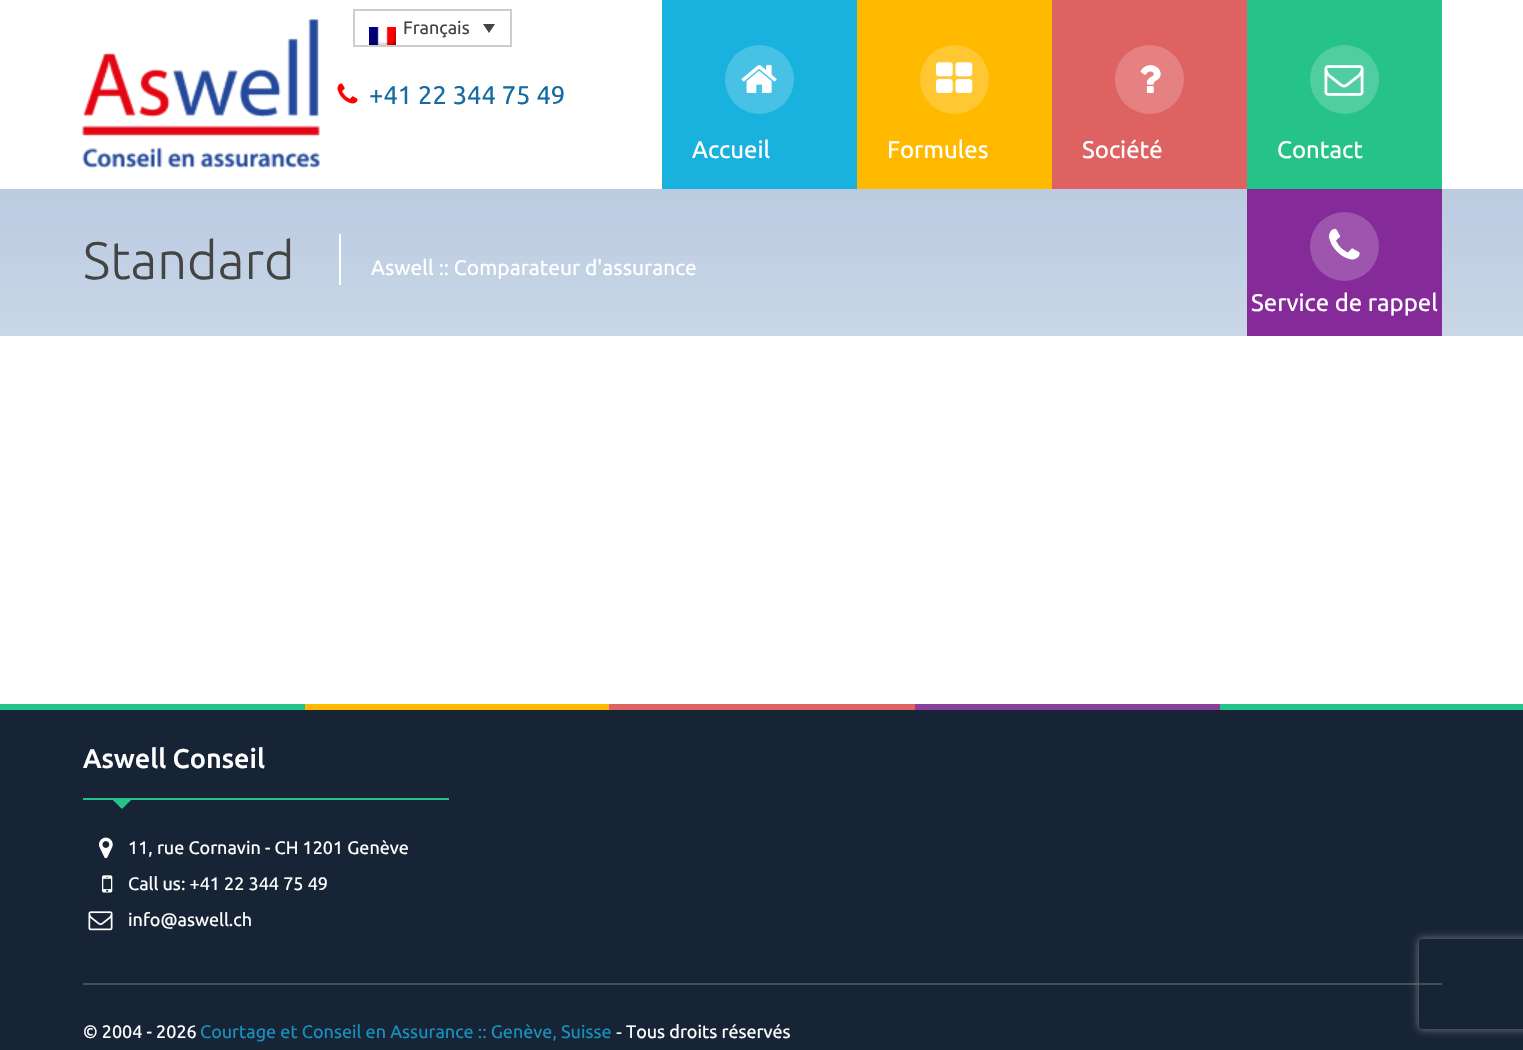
void draw(SkCanvas* canvas) {
    SkPaint paint;
    paint.setAntiAlias(true);
    auto face = [&](const char* family, int weight, float size, bool italic = false) {
        SkFontStyle style(weight, SkFontStyle::kNormal_Width,
            italic ? SkFontStyle::kItalic_Slant : SkFontStyle::kUpright_Slant);
        SkFont result(fontMgr->matchFamilyStyle(family, style), size);
        result.setSubpixel(true);
        return result;
    };
    auto write = [&](const char* s, float x, float y, const SkFont& font, SkColor color) {
        SkPaint ink(SkColor4f::FromColor(color));
        ink.setAntiAlias(true);
        canvas->drawString(s, x, y, font, ink);
    };
    auto block = [&](float x, float y, float w, float h, SkColor color) {
        SkPaint ink(SkColor4f::FromColor(color));
        ink.setAntiAlias(true);
        canvas->drawRect(SkRect::MakeXYWH(x, y, w, h), ink);
    };
    auto paste = [&](const char* path, float x, float y, float w, float h) {
        auto image = SkImages::DeferredFromEncodedData(SkData::MakeFromFileName(path));
        canvas->drawImageRect(image, SkRect::MakeXYWH(x, y, w, h), SkSamplingOptions());
    };
    canvas->clear(SK_ColorWHITE);
    paste("pic1.png", 82, 19, 238, 150);
    paint.setStyle(SkPaint::kStroke_Style);
    paint.setStrokeWidth(2);
    paint.setColor(SkColorSetRGB(205, 205, 205));
    canvas->drawRect(SkRect::MakeXYWH(354, 10, 157, 36), paint);
    paste("pic2.png", 369, 27, 27, 18);
    auto kFont1 = face("Ubuntu", 400, 18);
    write("Français", 403, 34, kFont1, SkColorSetRGB(68, 68, 68));
    paint.setStyle(SkPaint::kFill_Style);
    paint.setColor(SkColorSetRGB(68, 68, 68));
    canvas->drawPath(SkPathBuilder().moveTo(483, 24).lineTo(495, 24).lineTo(489, 33).close().detach(), paint);
    paste("pic3.png", 337, 83, 21, 21);
    auto kFont2 = face("Ubuntu", 400, 25.5f);
    write("+41 22 344 75 49", 369, 104, kFont2, SkColorSetRGB(22, 107, 162));
    block(662, 0, 195, 189, SkColorSetRGB(25, 177, 221));
    paint.setColor(SkColorSetRGB(71, 193, 228));
    canvas->drawCircle(759.5f, 79.5f, 34.5f, paint);
    paste("pic4.png", 741, 65, 36, 28);
    auto kFont3 = face("Ubuntu", 400, 24);
    write("Accueil", 692, 158, kFont3, SK_ColorWHITE);
    block(857, 0, 195, 189, SkColorSetRGB(255, 186, 0));
    paint.setColor(SkColorSetRGB(255, 200, 51));
    canvas->drawCircle(954.5f, 79.5f, 34.5f, paint);
    paste("pic5.png", 936, 62, 37, 31);
    write("Formules", 887, 158, kFont3, SK_ColorWHITE);
    block(1052, 0, 195, 189, SkColorSetRGB(222, 98, 98));
    paint.setColor(SkColorSetRGB(229, 129, 129));
    canvas->drawCircle(1149.5f, 79.5f, 34.5f, paint);
    paste("pic6.png", 1140, 65, 21, 28);
    write("Société", 1082, 158, kFont3, SK_ColorWHITE);
    block(1247, 0, 195, 189, SkColorSetRGB(37, 194, 137));
    paint.setColor(SkColorSetRGB(81, 206, 161));
    canvas->drawCircle(1344.5f, 79.5f, 34.5f, paint);
    paste("pic7.png", 1324, 65, 40, 31);
    write("Contact", 1277, 158, kFont3, SK_ColorWHITE);
    paste("pic8.png", 0, 189, 1523, 147);
    auto kFont4 = face("Ubuntu", 300, 52.5f);
    write("Standard", 83, 279, kFont4, SkColorSetRGB(68, 68, 68));
    block(339, 234, 2, 51, SK_ColorWHITE);
    auto kFont5 = face("Ubuntu", 400, 21);
    write("Aswell :: Comparateur d'assurance", 371, 275, kFont5, SK_ColorWHITE);
    block(1247, 189, 195, 147, SkColorSetRGB(133, 43, 153));
    paint.setColor(SkColorSetRGB(157, 85, 173));
    canvas->drawCircle(1344.5f, 246.5f, 34.5f, paint);
    paste("pic9.png", 1329, 228, 31, 32);
    write("Service de rappel", 1251, 311, kFont3, SK_ColorWHITE);
    block(0, 710, 1523, 340, SkColorSetRGB(23, 36, 54));
    block(0, 704, 305, 6, SkColorSetRGB(37, 194, 137));
    block(305, 704, 304, 6, SkColorSetRGB(255, 186, 0));
    block(609, 704, 306, 6, SkColorSetRGB(222, 98, 98));
    block(915, 704, 305, 6, SkColorSetRGB(137, 64, 153));
    block(1220, 704, 303, 6, SkColorSetRGB(37, 194, 137));
    block(83, 798, 366, 2, SkColorSetRGB(37, 194, 137));
    auto kFont6 = face("Ubuntu", 500, 27);
    write("Aswell Conseil", 83, 768, kFont6, SK_ColorWHITE);
    paste("pic10.png", 113, 800, 18, 9);
    paste("pic11.png", 99, 837, 14, 22);
    write("11, rue Cornavin - CH 1201 Genève", 128, 854, kFont1, SK_ColorWHITE);
    paste("pic12.png", 102, 875, 11, 18);
    write("Call us: +41 22 344 75 49", 128, 890, kFont1, SK_ColorWHITE);
    paste("pic13.png", 88, 911, 25, 20);
    write("info@aswell.ch", 128, 926, kFont1, SK_ColorWHITE);
    block(83, 983, 1359, 2, SkColorSetRGB(68, 80, 89));
    write("© 2004 - 2026", 83, 1038, kFont1, SK_ColorWHITE);
    write("Courtage et Conseil en Assurance :: Genève, Suisse", 200, 1038, kFont1, SkColorSetRGB(22, 145, 190));
    auto kFont7 = face("Liberation Sans", 400, 18);
    write("‐", 616, 1038, kFont7, SK_ColorWHITE);
    write("Tous droits réservés", 626, 1038, kFont1, SK_ColorWHITE);
    canvas->save();
    canvas->clipPath(SkPathBuilder(SkPathFillType::kEvenOdd).moveTo(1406, 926).lineTo(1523, 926).lineTo(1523, 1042).lineTo(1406, 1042).close().moveTo(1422, 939).lineTo(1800, 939).cubicTo(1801.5f, 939, 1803, 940.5f, 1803, 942).lineTo(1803, 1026).cubicTo(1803, 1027.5f, 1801.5f, 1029, 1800, 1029).lineTo(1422, 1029).cubicTo(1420.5f, 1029, 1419, 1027.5f, 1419, 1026).lineTo(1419, 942).cubicTo(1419, 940.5f, 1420.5f, 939, 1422, 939).close().detach(), true);
    paint.setColor(SkColorSetRGB(128, 128, 128));
    paint.setMaskFilter(SkMaskFilter::MakeBlur(kNormal_SkBlurStyle, 4));
    canvas->drawRoundRect(SkRect::MakeXYWH(1419, 939, 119, 90), 3, 3, paint);
    paint.setMaskFilter(nullptr);
    canvas->restore();
}
